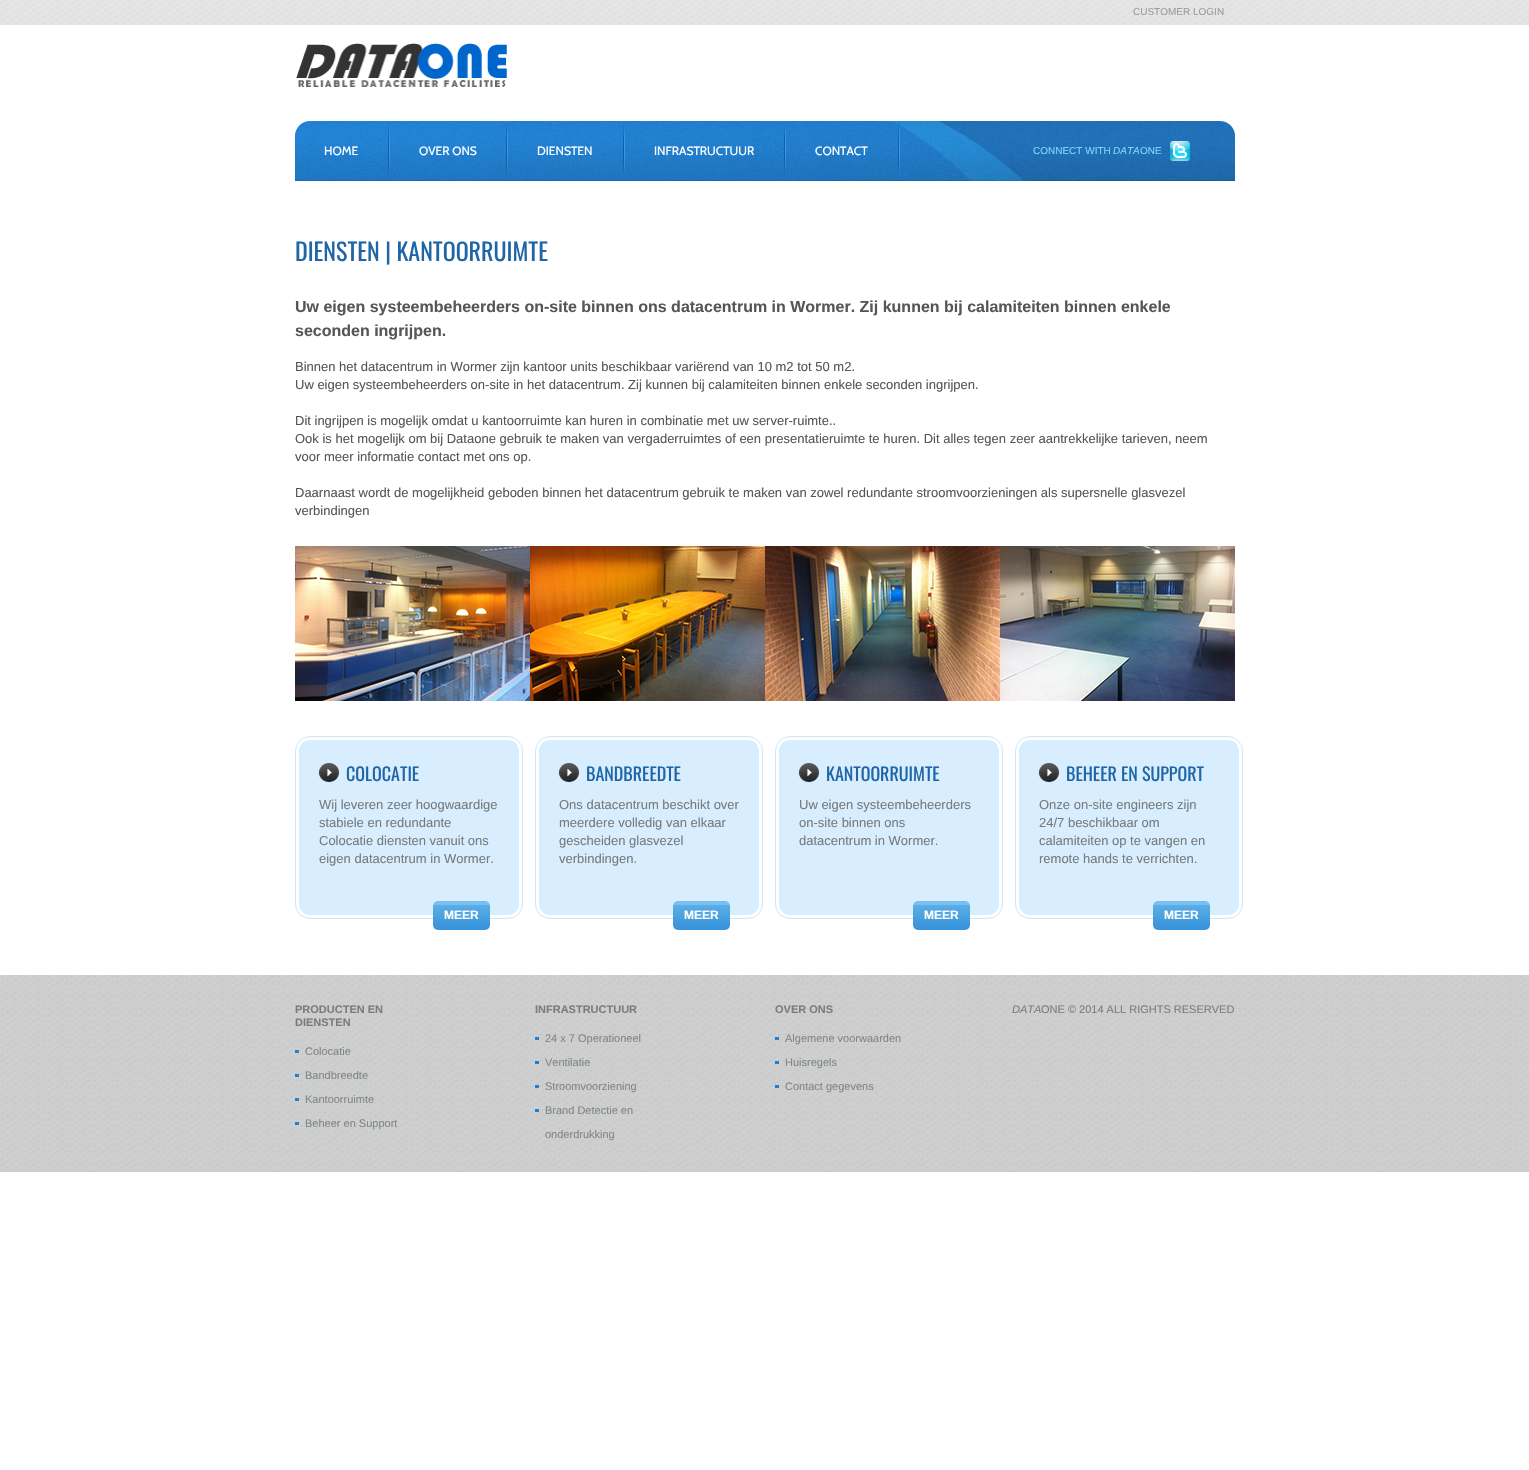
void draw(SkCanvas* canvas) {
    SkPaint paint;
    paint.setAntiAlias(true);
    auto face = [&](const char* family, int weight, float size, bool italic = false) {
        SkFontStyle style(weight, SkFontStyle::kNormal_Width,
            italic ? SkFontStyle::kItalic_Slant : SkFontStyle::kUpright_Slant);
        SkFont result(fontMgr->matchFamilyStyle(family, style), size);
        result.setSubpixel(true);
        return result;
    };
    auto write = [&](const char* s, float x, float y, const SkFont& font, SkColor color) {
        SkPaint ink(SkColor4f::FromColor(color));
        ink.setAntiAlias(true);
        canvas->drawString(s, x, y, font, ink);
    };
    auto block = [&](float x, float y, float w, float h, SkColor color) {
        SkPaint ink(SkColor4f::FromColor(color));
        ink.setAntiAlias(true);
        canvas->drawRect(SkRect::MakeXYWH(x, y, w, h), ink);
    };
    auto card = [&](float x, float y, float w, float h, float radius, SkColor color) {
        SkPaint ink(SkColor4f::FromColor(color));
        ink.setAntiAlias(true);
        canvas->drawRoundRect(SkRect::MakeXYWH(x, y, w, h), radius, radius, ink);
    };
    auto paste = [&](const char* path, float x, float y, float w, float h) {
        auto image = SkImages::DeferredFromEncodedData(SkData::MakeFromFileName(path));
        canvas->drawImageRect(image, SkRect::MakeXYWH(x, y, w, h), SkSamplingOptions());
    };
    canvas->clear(SK_ColorWHITE);
    paste("pic1.png", 0, 0, 1529, 25);
    auto kFont1 = face("Liberation Sans", 400, 10);
    write("CUSTOMER LOGIN", 1133, 15, kFont1, SkColorSetRGB(157, 157, 157));
    paste("pic2.png", 296, 43, 211, 44);
    paste("pic3.png", 295, 121, 940, 60);
    paste("pic4.png", 388, 121, 2, 58);
    auto kFont2 = face("Cabin", 400, 12);
    write("HOME", 324, 155, kFont2, SK_ColorWHITE);
    paste("pic5.png", 506, 121, 2, 59);
    write("OVER ONS", 419, 155, kFont2, SK_ColorWHITE);
    paste("pic4.png", 623, 121, 2, 58);
    write("DIENSTEN", 537, 155, kFont2, SK_ColorWHITE);
    paste("pic4.png", 784, 121, 2, 58);
    write("INFRASTRUCTUUR", 654, 155, kFont2, SK_ColorWHITE);
    paste("pic6.png", 898, 121, 2, 57);
    write("CONTACT", 815, 155, kFont2, SK_ColorWHITE);
    write("CONNECT WITH", 1033, 154, kFont1, SkColorSetRGB(124, 212, 248));
    auto kFont3 = face("Liberation Sans", 400, 10, true);
    write("DATA", 1113, 154, kFont3, SkColorSetRGB(124, 212, 248));
    write("ONE", 1140, 154, kFont1, SkColorSetRGB(124, 212, 248));
    paste("pic7.png", 1170, 141, 20, 20);
    auto kFont4 = face("Oswald", 400, 24);
    write("DIENSTEN | KANTOORRUIMTE", 295, 261, kFont4, SkColorSetRGB(30, 102, 166));
    auto kFont5 = face("Liberation Sans", 700, 16);
    write("Uw eigen systeembeheerders on-site binnen ons datacentrum in Wormer. Zij kunnen bij calamiteiten binnen enkele", 295, 312, kFont5, SkColorSetRGB(87, 85, 85));
    write("seconden ingrijpen.", 295, 336, kFont5, SkColorSetRGB(87, 85, 85));
    auto kFont6 = face("Liberation Sans", 400, 13);
    write("Binnen het datacentrum in Wormer zijn kantoor units beschikbaar variërend van 10 m2 tot 50 m2.", 295, 371, kFont6, SkColorSetRGB(87, 85, 85));
    write("Uw eigen systeembeheerders on-site in het datacentrum. Zij kunnen bij calamiteiten binnen enkele seconden ingrijpen.", 295, 389, kFont6, SkColorSetRGB(87, 85, 85));
    write("Dit ingrijpen is mogelijk omdat u kantoorruimte kan huren in combinatie met uw server-ruimte..", 295, 425, kFont6, SkColorSetRGB(87, 85, 85));
    write("Ook is het mogelijk om bij Dataone gebruik te maken van vergaderruimtes of een presentatieruimte te huren. Dit alles tegen zeer aantrekkelijke tarieven, neem", 295, 443, kFont6, SkColorSetRGB(87, 85, 85));
    write("voor meer informatie contact met ons op.", 295, 461, kFont6, SkColorSetRGB(87, 85, 85));
    write("Daarnaast wordt de mogelijkheid geboden binnen het datacentrum gebruik te maken van zowel redundante stroomvoorzieningen als supersnelle glasvezel", 295, 497, kFont6, SkColorSetRGB(87, 85, 85));
    write("verbindingen", 295, 515, kFont6, SkColorSetRGB(87, 85, 85));
    paste("pic8.png", 295, 546, 235, 155);
    paste("pic9.png", 530, 546, 235, 155);
    paste("pic10.png", 765, 546, 235, 155);
    paste("pic11.png", 1000, 546, 235, 155);
    paint.setStyle(SkPaint::kStroke_Style);
    paint.setStrokeWidth(1);
    paint.setColor(SkColorSetRGB(204, 231, 250));
    canvas->drawRoundRect(SkRect::MakeXYWH(295.5f, 736.5f, 227, 182), 14.5f, 14.5f, paint);
    card(299, 740, 220, 175, 11, SkColorSetRGB(216, 238, 255));
    paste("pic12.png", 319, 763, 20, 19);
    auto kFont7 = face("Oswald", 400, 18);
    write("COLOCATIE", 346, 781, kFont7, SkColorSetRGB(30, 102, 166));
    write("Wij leveren zeer hoogwaardige", 319, 809, kFont6, SkColorSetRGB(118, 123, 126));
    write("stabiele en redundante", 319, 827, kFont6, SkColorSetRGB(118, 123, 126));
    write("Colocatie diensten vanuit ons", 319, 845, kFont6, SkColorSetRGB(118, 123, 126));
    write("eigen datacentrum in Wormer.", 319, 863, kFont6, SkColorSetRGB(118, 123, 126));
    paste("pic13.png", 433, 901, 57, 29);
    auto kFont8 = face("Liberation Sans", 700, 12);
    write("MEER", 444, 919, kFont8, SK_ColorWHITE);
    canvas->drawRoundRect(SkRect::MakeXYWH(535.5f, 736.5f, 227, 182), 14.5f, 14.5f, paint);
    card(539, 740, 220, 175, 11, SkColorSetRGB(216, 238, 255));
    paste("pic12.png", 559, 763, 20, 19);
    write("BANDBREEDTE", 586, 781, kFont7, SkColorSetRGB(30, 102, 166));
    write("Ons datacentrum beschikt over", 559, 809, kFont6, SkColorSetRGB(118, 123, 126));
    write("meerdere volledig van elkaar", 559, 827, kFont6, SkColorSetRGB(118, 123, 126));
    write("gescheiden glasvezel", 559, 845, kFont6, SkColorSetRGB(118, 123, 126));
    write("verbindingen.", 559, 863, kFont6, SkColorSetRGB(118, 123, 126));
    paste("pic13.png", 673, 901, 57, 29);
    write("MEER", 684, 919, kFont8, SK_ColorWHITE);
    canvas->drawRoundRect(SkRect::MakeXYWH(775.5f, 736.5f, 227, 182), 14.5f, 14.5f, paint);
    card(779, 740, 220, 175, 11, SkColorSetRGB(216, 238, 255));
    paste("pic14.png", 799, 763, 20, 19);
    write("KANTOORRUIMTE", 826, 781, kFont7, SkColorSetRGB(30, 102, 166));
    write("Uw eigen systeembeheerders", 799, 809, kFont6, SkColorSetRGB(118, 123, 126));
    write("on-site binnen ons", 799, 827, kFont6, SkColorSetRGB(118, 123, 126));
    write("datacentrum in Wormer.", 799, 845, kFont6, SkColorSetRGB(118, 123, 126));
    paste("pic15.png", 913, 901, 57, 29);
    write("MEER", 924, 919, kFont8, SK_ColorWHITE);
    canvas->drawRoundRect(SkRect::MakeXYWH(1015.5f, 736.5f, 227, 182), 14.5f, 14.5f, paint);
    card(1019, 740, 220, 175, 11, SkColorSetRGB(216, 238, 255));
    paste("pic12.png", 1039, 763, 20, 19);
    write("BEHEER EN SUPPORT", 1066, 781, kFont7, SkColorSetRGB(30, 102, 166));
    write("Onze on-site engineers zijn", 1039, 809, kFont6, SkColorSetRGB(118, 123, 126));
    write("24/7 beschikbaar om", 1039, 827, kFont6, SkColorSetRGB(118, 123, 126));
    write("calamiteiten op te vangen en", 1039, 845, kFont6, SkColorSetRGB(118, 123, 126));
    write("remote hands te verrichten.", 1039, 863, kFont6, SkColorSetRGB(118, 123, 126));
    paste("pic13.png", 1153, 901, 57, 29);
    write("MEER", 1164, 919, kFont8, SK_ColorWHITE);
    paste("pic16.png", 0, 975, 1529, 197);
    auto kFont9 = face("Liberation Sans", 700, 11);
    write("PRODUCTEN EN", 295, 1013, kFont9, SkColorSetRGB(124, 124, 124));
    write("DIENSTEN", 295, 1026, kFont9, SkColorSetRGB(124, 124, 124));
    block(295, 1050, 4, 3, SkColorSetRGB(32, 127, 208));
    auto kFont10 = face("Liberation Sans", 400, 11);
    write("Colocatie", 305, 1055, kFont10, SkColorSetRGB(126, 135, 136));
    block(295, 1074, 4, 3, SkColorSetRGB(32, 127, 208));
    write("Bandbreedte", 305, 1079, kFont10, SkColorSetRGB(126, 135, 136));
    block(295, 1098, 4, 3, SkColorSetRGB(32, 127, 208));
    write("Kantoorruimte", 305, 1103, kFont10, SkColorSetRGB(126, 135, 136));
    block(295, 1122, 4, 3, SkColorSetRGB(32, 127, 208));
    write("Beheer en Support", 305, 1127, kFont10, SkColorSetRGB(126, 135, 136));
    write("INFRASTRUCTUUR", 535, 1013, kFont9, SkColorSetRGB(124, 124, 124));
    block(535, 1037, 4, 3, SkColorSetRGB(32, 127, 208));
    write("24 x 7 Operationeel", 545, 1042, kFont10, SkColorSetRGB(126, 135, 136));
    block(535, 1061, 4, 3, SkColorSetRGB(32, 127, 208));
    write("Ventilatie", 545, 1066, kFont10, SkColorSetRGB(126, 135, 136));
    block(535, 1085, 4, 3, SkColorSetRGB(32, 127, 208));
    write("Stroomvoorziening", 545, 1090, kFont10, SkColorSetRGB(126, 135, 136));
    block(535, 1109, 4, 3, SkColorSetRGB(32, 127, 208));
    write("Brand Detectie en", 545, 1114, kFont10, SkColorSetRGB(126, 135, 136));
    write("onderdrukking", 545, 1138, kFont10, SkColorSetRGB(126, 135, 136));
    write("OVER ONS", 775, 1013, kFont9, SkColorSetRGB(124, 124, 124));
    block(775, 1037, 4, 3, SkColorSetRGB(32, 127, 208));
    write("Algemene voorwaarden", 785, 1042, kFont10, SkColorSetRGB(126, 135, 136));
    block(775, 1061, 4, 3, SkColorSetRGB(32, 127, 208));
    write("Huisregels", 785, 1066, kFont10, SkColorSetRGB(126, 135, 136));
    block(775, 1085, 4, 3, SkColorSetRGB(32, 127, 208));
    write("Contact gegevens", 785, 1090, kFont10, SkColorSetRGB(126, 135, 136));
    auto kFont11 = face("Liberation Sans", 400, 11, true);
    write("DATA", 1012, 1013, kFont11, SkColorSetRGB(124, 124, 124));
    write("ONE © 2014 ALL RIGHTS RESERVED", 1041, 1013, kFont10, SkColorSetRGB(124, 124, 124));
}
